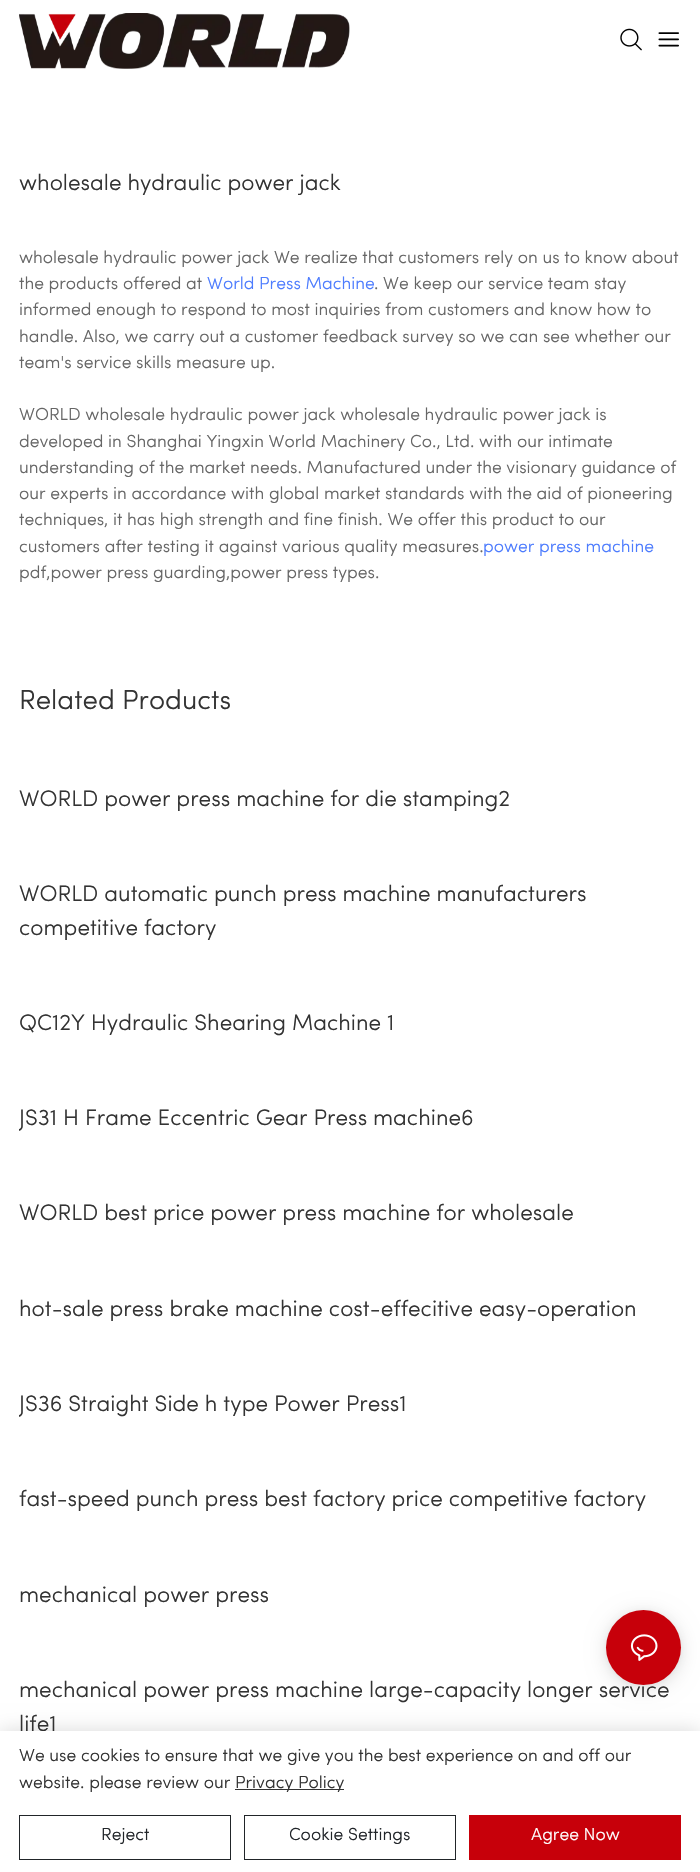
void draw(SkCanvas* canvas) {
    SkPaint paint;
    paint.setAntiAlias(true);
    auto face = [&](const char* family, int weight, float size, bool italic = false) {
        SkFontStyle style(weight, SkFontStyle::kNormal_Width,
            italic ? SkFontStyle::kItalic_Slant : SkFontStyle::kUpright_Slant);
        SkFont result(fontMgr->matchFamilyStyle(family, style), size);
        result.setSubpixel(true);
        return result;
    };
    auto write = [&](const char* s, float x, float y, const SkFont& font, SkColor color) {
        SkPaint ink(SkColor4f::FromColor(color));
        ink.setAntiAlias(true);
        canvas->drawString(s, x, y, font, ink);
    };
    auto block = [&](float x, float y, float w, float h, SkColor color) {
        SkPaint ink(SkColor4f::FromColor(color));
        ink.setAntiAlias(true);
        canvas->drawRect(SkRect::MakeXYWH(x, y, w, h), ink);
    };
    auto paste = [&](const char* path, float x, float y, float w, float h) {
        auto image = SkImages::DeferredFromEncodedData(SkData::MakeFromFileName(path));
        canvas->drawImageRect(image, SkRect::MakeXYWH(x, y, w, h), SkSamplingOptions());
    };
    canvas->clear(SK_ColorWHITE);
    paste("pic1.png", 19, 13, 331, 56);
    paste("pic2.png", 620, 28, 22, 23);
    paste("pic3.png", 658, 32, 21, 15);
    auto kFont1 = face("Sofia", 300, 22.5f);
    write("wholesale hydraulic power jack", 19, 190, kFont1, SkColorSetRGB(51, 51, 51));
    auto kFont2 = face("Sofia", 300, 17.5f);
    write("wholesale hydraulic power jack We realize that customers rely on us to know about", 19, 263, kFont2, SkColorSetRGB(102, 102, 102));
    write("the products offered at", 19, 289, kFont2, SkColorSetRGB(102, 102, 102));
    write("World Press Machine", 207, 289, kFont2, SkColorSetRGB(77, 124, 254));
    write(". We keep our service team stay", 374, 289, kFont2, SkColorSetRGB(102, 102, 102));
    write("informed enough to respond to most inquiries from customers and know how to", 19, 315, kFont2, SkColorSetRGB(102, 102, 102));
    write("handle. Also, we carry out a customer feedback survey so we can see whether our", 19, 342, kFont2, SkColorSetRGB(102, 102, 102));
    write("team's service skills measure up.", 19, 368, kFont2, SkColorSetRGB(102, 102, 102));
    write("WORLD wholesale hydraulic power jack wholesale hydraulic power jack is", 19, 420, kFont2, SkColorSetRGB(102, 102, 102));
    write("developed in Shanghai Yingxin World Machinery Co., Ltd. with our intimate", 19, 447, kFont2, SkColorSetRGB(102, 102, 102));
    write("understanding of the market needs. Manufactured under the visionary guidance of", 19, 473, kFont2, SkColorSetRGB(102, 102, 102));
    write("our experts in accordance with global market standards with the aid of pioneering", 19, 499, kFont2, SkColorSetRGB(102, 102, 102));
    write("techniques, it has high strength and fine finish. We offer this product to our", 19, 525, kFont2, SkColorSetRGB(102, 102, 102));
    write("customers after testing it against various quality measures.", 19, 552, kFont2, SkColorSetRGB(102, 102, 102));
    write("power press machine", 483, 552, kFont2, SkColorSetRGB(77, 124, 254));
    write("pdf,power press guarding,power press types.", 19, 578, kFont2, SkColorSetRGB(102, 102, 102));
    auto kFont3 = face("Sofia", 300, 27.5f);
    write("Related Products", 19, 709, kFont3, SkColorSetRGB(51, 51, 51));
    write("WORLD power press machine for die stamping2", 19, 806, kFont1, SkColorSetRGB(51, 51, 51));
    write("WORLD automatic punch press machine manufacturers", 19, 901, kFont1, SkColorSetRGB(51, 51, 51));
    write("competitive factory", 19, 935, kFont1, SkColorSetRGB(51, 51, 51));
    write("QC12Y Hydraulic Shearing Machine 1", 19, 1030, kFont1, SkColorSetRGB(51, 51, 51));
    canvas->save();
    canvas->clipRect(SkRect::MakeXYWH(19, 1104, 662, 34));
    write("JS31 H Frame Eccentric Gear Press", 19, 1125, kFont1, SkColorSetRGB(51, 51, 51));
    canvas->restore();
    write("machine6", 373, 1125, kFont1, SkColorSetRGB(51, 51, 51));
    write("WORLD best price power press machine for wholesale", 19, 1220, kFont1, SkColorSetRGB(51, 51, 51));
    write("hot-sale press brake machine cost-effecitive easy-operation", 19, 1316, kFont1, SkColorSetRGB(51, 51, 51));
    canvas->save();
    canvas->clipRect(SkRect::MakeXYWH(19, 1390, 662, 34));
    write("JS36 Straight Side h type Power Press1", 19, 1411, kFont1, SkColorSetRGB(51, 51, 51));
    canvas->restore();
    write("fast-speed punch press best factory price competitive factory", 19, 1506, kFont1, SkColorSetRGB(51, 51, 51));
    write("mechanical power press", 19, 1602, kFont1, SkColorSetRGB(51, 51, 51));
    write("mechanical power press machine large-capacity longer service", 19, 1697, kFont1, SkColorSetRGB(51, 51, 51));
    write("life1", 19, 1731, kFont1, SkColorSetRGB(51, 51, 51));
    paint.setColor(SkColorSetARGB(31, 0, 0, 0));
    paint.setMaskFilter(SkMaskFilter::MakeBlur(kNormal_SkBlurStyle, 10));
    canvas->drawRoundRect(SkRect::MakeXYWH(606, 1613, 75, 75), 37.5f, 37.5f, paint);
    paint.setMaskFilter(nullptr);
    paint.setColor(SkColorSetARGB(15, 0, 0, 0));
    paint.setMaskFilter(SkMaskFilter::MakeBlur(kNormal_SkBlurStyle, 2.5f));
    canvas->drawRoundRect(SkRect::MakeXYWH(606, 1611, 75, 75), 37.5f, 37.5f, paint);
    paint.setMaskFilter(nullptr);
    paint.setColor(SkColorSetRGB(199, 0, 10));
    canvas->drawCircle(643.5f, 1647.5f, 37.5f, paint);
    paste("pic4.png", 630, 1634, 28, 27);
    paint.setColor(SkColorSetARGB(38, 0, 0, 0));
    paint.setMaskFilter(SkMaskFilter::MakeBlur(kNormal_SkBlurStyle, 9.5f));
    canvas->drawRect(SkRect::MakeXYWH(0, 1731, 700, 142), paint);
    paint.setMaskFilter(nullptr);
    block(0, 1731, 700, 141, SK_ColorWHITE);
    write("We use cookies to ensure that we give you the best experience on and off our", 19, 1761, kFont2, SkColorSetRGB(51, 51, 51));
    write("website. please review our", 19, 1788, kFont2, SkColorSetRGB(51, 51, 51));
    block(235, 1789, 109, 1, SkColorSetRGB(51, 51, 51));
    write("Privacy Policy", 235, 1788, kFont2, SkColorSetRGB(51, 51, 51));
    paint.setStyle(SkPaint::kStroke_Style);
    paint.setStrokeWidth(1);
    paint.setColor(SkColorSetRGB(33, 37, 41));
    canvas->drawRect(SkRect::MakeXYWH(19.5f, 1815.5f, 211, 44), paint);
    write("Reject", 101, 1840, kFont2, SkColorSetRGB(33, 37, 41));
    canvas->drawRect(SkRect::MakeXYWH(244.5f, 1815.5f, 211, 44), paint);
    write("Cookie Settings", 289, 1840, kFont2, SkColorSetRGB(33, 37, 41));
    block(469, 1815, 212, 45, SkColorSetRGB(199, 0, 10));
    write("Agree Now", 531, 1840, kFont2, SK_ColorWHITE);
}
